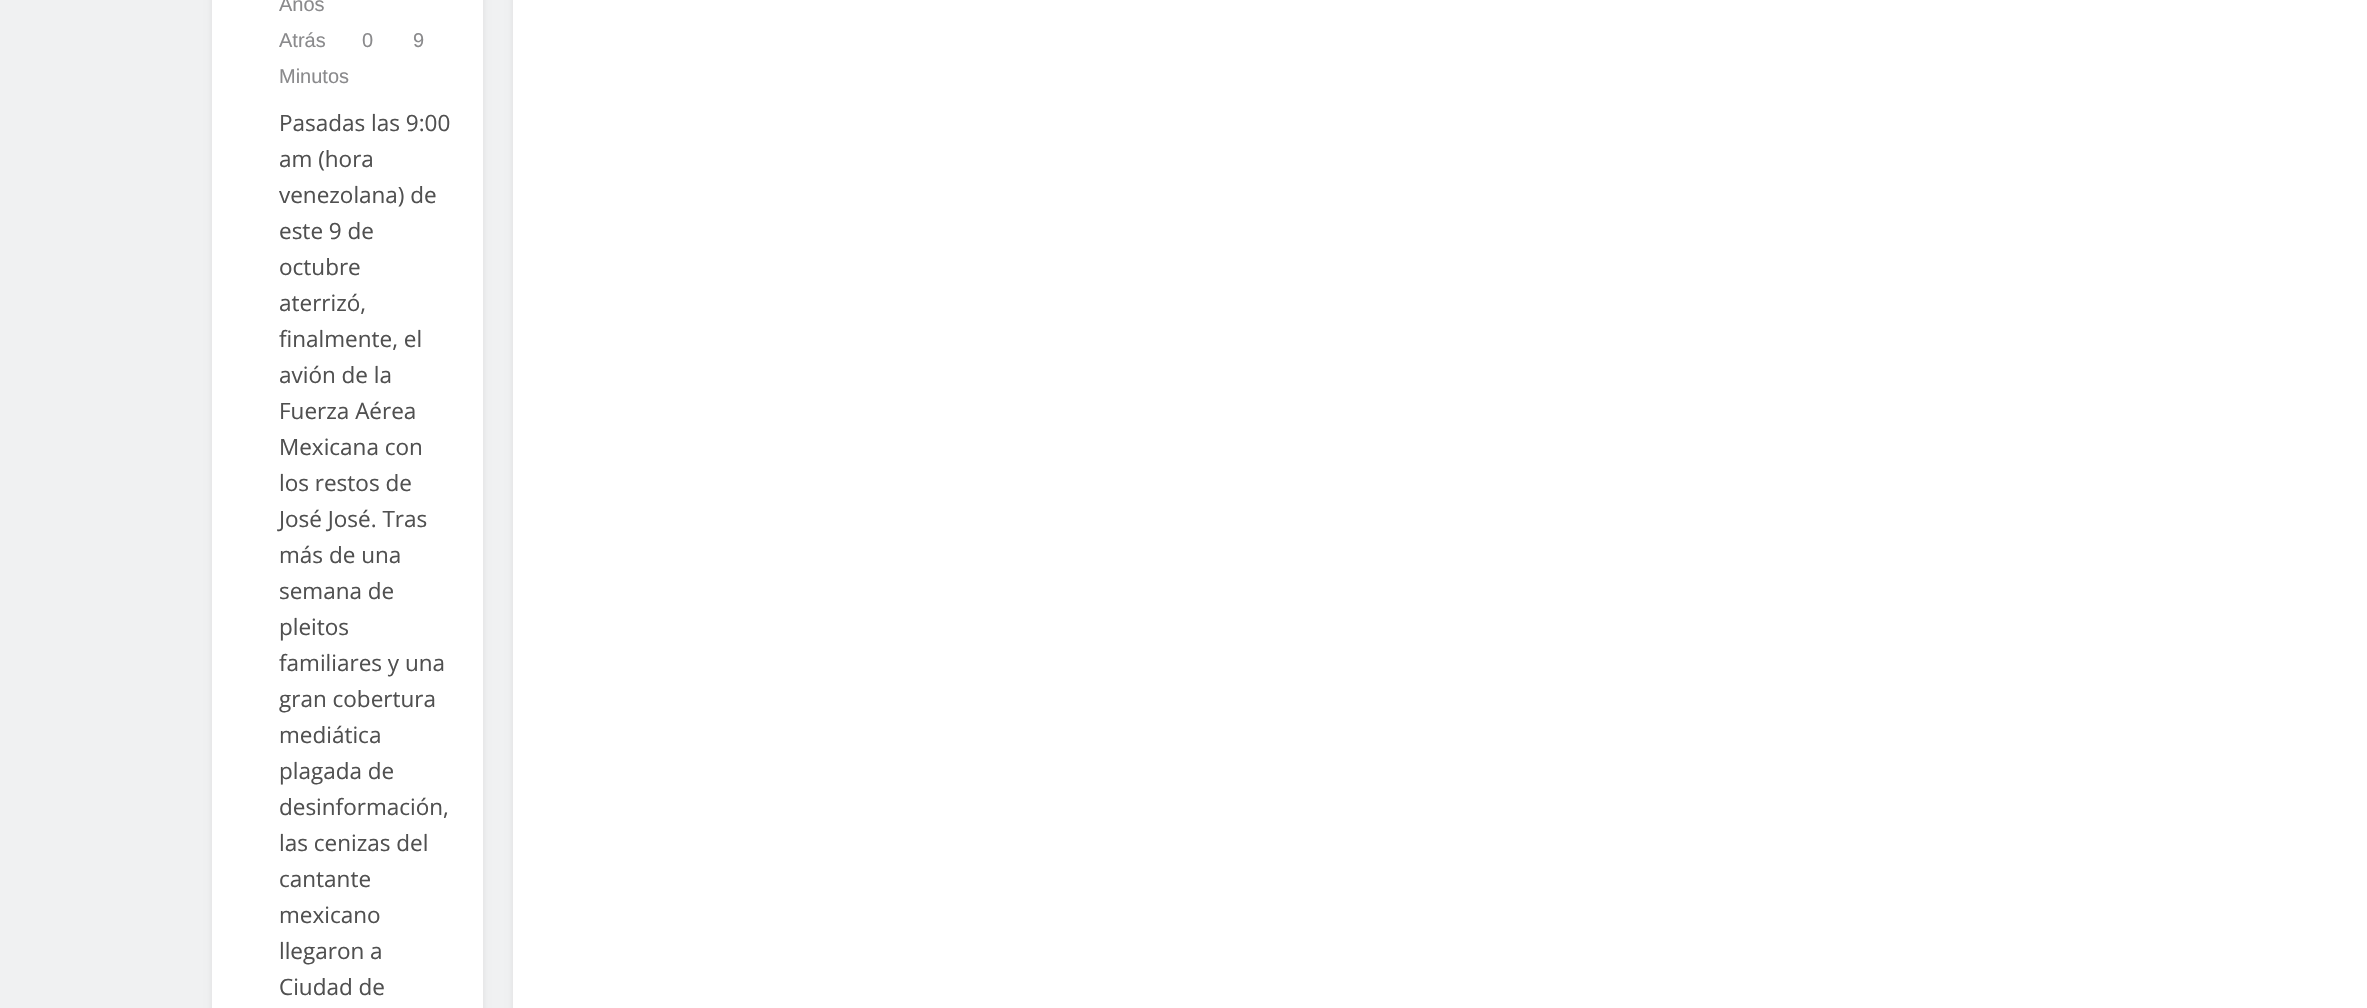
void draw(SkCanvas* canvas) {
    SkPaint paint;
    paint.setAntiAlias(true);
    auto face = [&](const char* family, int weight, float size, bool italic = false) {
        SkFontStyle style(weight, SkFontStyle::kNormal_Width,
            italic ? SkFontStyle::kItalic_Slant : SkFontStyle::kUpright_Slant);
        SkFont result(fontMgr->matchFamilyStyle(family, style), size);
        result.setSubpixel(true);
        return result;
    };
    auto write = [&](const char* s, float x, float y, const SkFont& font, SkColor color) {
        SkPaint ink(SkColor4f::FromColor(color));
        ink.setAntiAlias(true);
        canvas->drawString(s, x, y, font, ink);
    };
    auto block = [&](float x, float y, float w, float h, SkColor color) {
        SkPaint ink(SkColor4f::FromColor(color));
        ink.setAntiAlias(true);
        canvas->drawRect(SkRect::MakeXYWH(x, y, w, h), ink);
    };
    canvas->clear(SkColorSetRGB(240, 241, 242));
    paint.setColor(SkColorSetARGB(20, 0, 0, 0));
    paint.setMaskFilter(SkMaskFilter::MakeBlur(kNormal_SkBlurStyle, 3));
    canvas->drawRect(SkRect::MakeXYWH(212, -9, 271, 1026), paint);
    paint.setMaskFilter(nullptr);
    block(212, 0, 271, 1008, SK_ColorWHITE);
    auto kFont1 = face("Liberation Sans", 400, 20);
    write("Años", 279, 11, kFont1, SkColorSetRGB(138, 138, 140));
    write("Atrás", 279, 47, kFont1, SkColorSetRGB(138, 138, 140));
    write("0", 362, 47, kFont1, SkColorSetRGB(138, 138, 140));
    write("9", 413, 47, kFont1, SkColorSetRGB(138, 138, 140));
    write("Minutos", 279, 83, kFont1, SkColorSetRGB(138, 138, 140));
    auto kFont2 = face("Open Sans", 400, 22.5f);
    write("Pasadas las 9:00", 279, 131, kFont2, SkColorSetRGB(80, 80, 80));
    write("am (hora", 279, 167, kFont2, SkColorSetRGB(80, 80, 80));
    write("venezolana) de", 279, 203, kFont2, SkColorSetRGB(80, 80, 80));
    write("este 9 de", 279, 239, kFont2, SkColorSetRGB(80, 80, 80));
    write("octubre", 279, 275, kFont2, SkColorSetRGB(80, 80, 80));
    write("aterrizó,", 279, 311, kFont2, SkColorSetRGB(80, 80, 80));
    write("finalmente, el", 279, 347, kFont2, SkColorSetRGB(80, 80, 80));
    write("avión de la", 279, 383, kFont2, SkColorSetRGB(80, 80, 80));
    write("Fuerza Aérea", 279, 419, kFont2, SkColorSetRGB(80, 80, 80));
    write("Mexicana con", 279, 455, kFont2, SkColorSetRGB(80, 80, 80));
    write("los restos de", 279, 491, kFont2, SkColorSetRGB(80, 80, 80));
    write("José José. Tras", 279, 527, kFont2, SkColorSetRGB(80, 80, 80));
    write("más de una", 279, 563, kFont2, SkColorSetRGB(80, 80, 80));
    write("semana de", 279, 599, kFont2, SkColorSetRGB(80, 80, 80));
    write("pleitos", 279, 635, kFont2, SkColorSetRGB(80, 80, 80));
    write("familiares y una", 279, 671, kFont2, SkColorSetRGB(80, 80, 80));
    write("gran cobertura", 279, 707, kFont2, SkColorSetRGB(80, 80, 80));
    write("mediática", 279, 743, kFont2, SkColorSetRGB(80, 80, 80));
    write("plagada de", 279, 779, kFont2, SkColorSetRGB(80, 80, 80));
    write("desinformación,", 279, 815, kFont2, SkColorSetRGB(80, 80, 80));
    write("las cenizas del", 279, 851, kFont2, SkColorSetRGB(80, 80, 80));
    write("cantante", 279, 887, kFont2, SkColorSetRGB(80, 80, 80));
    write("mexicano", 279, 923, kFont2, SkColorSetRGB(80, 80, 80));
    write("llegaron a", 279, 959, kFont2, SkColorSetRGB(80, 80, 80));
    write("Ciudad de", 279, 995, kFont2, SkColorSetRGB(80, 80, 80));
    paint.setMaskFilter(SkMaskFilter::MakeBlur(kNormal_SkBlurStyle, 3));
    canvas->drawRect(SkRect::MakeXYWH(513, -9, 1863, 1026), paint);
    paint.setMaskFilter(nullptr);
    block(513, 0, 1854, 1008, SK_ColorWHITE);
}
